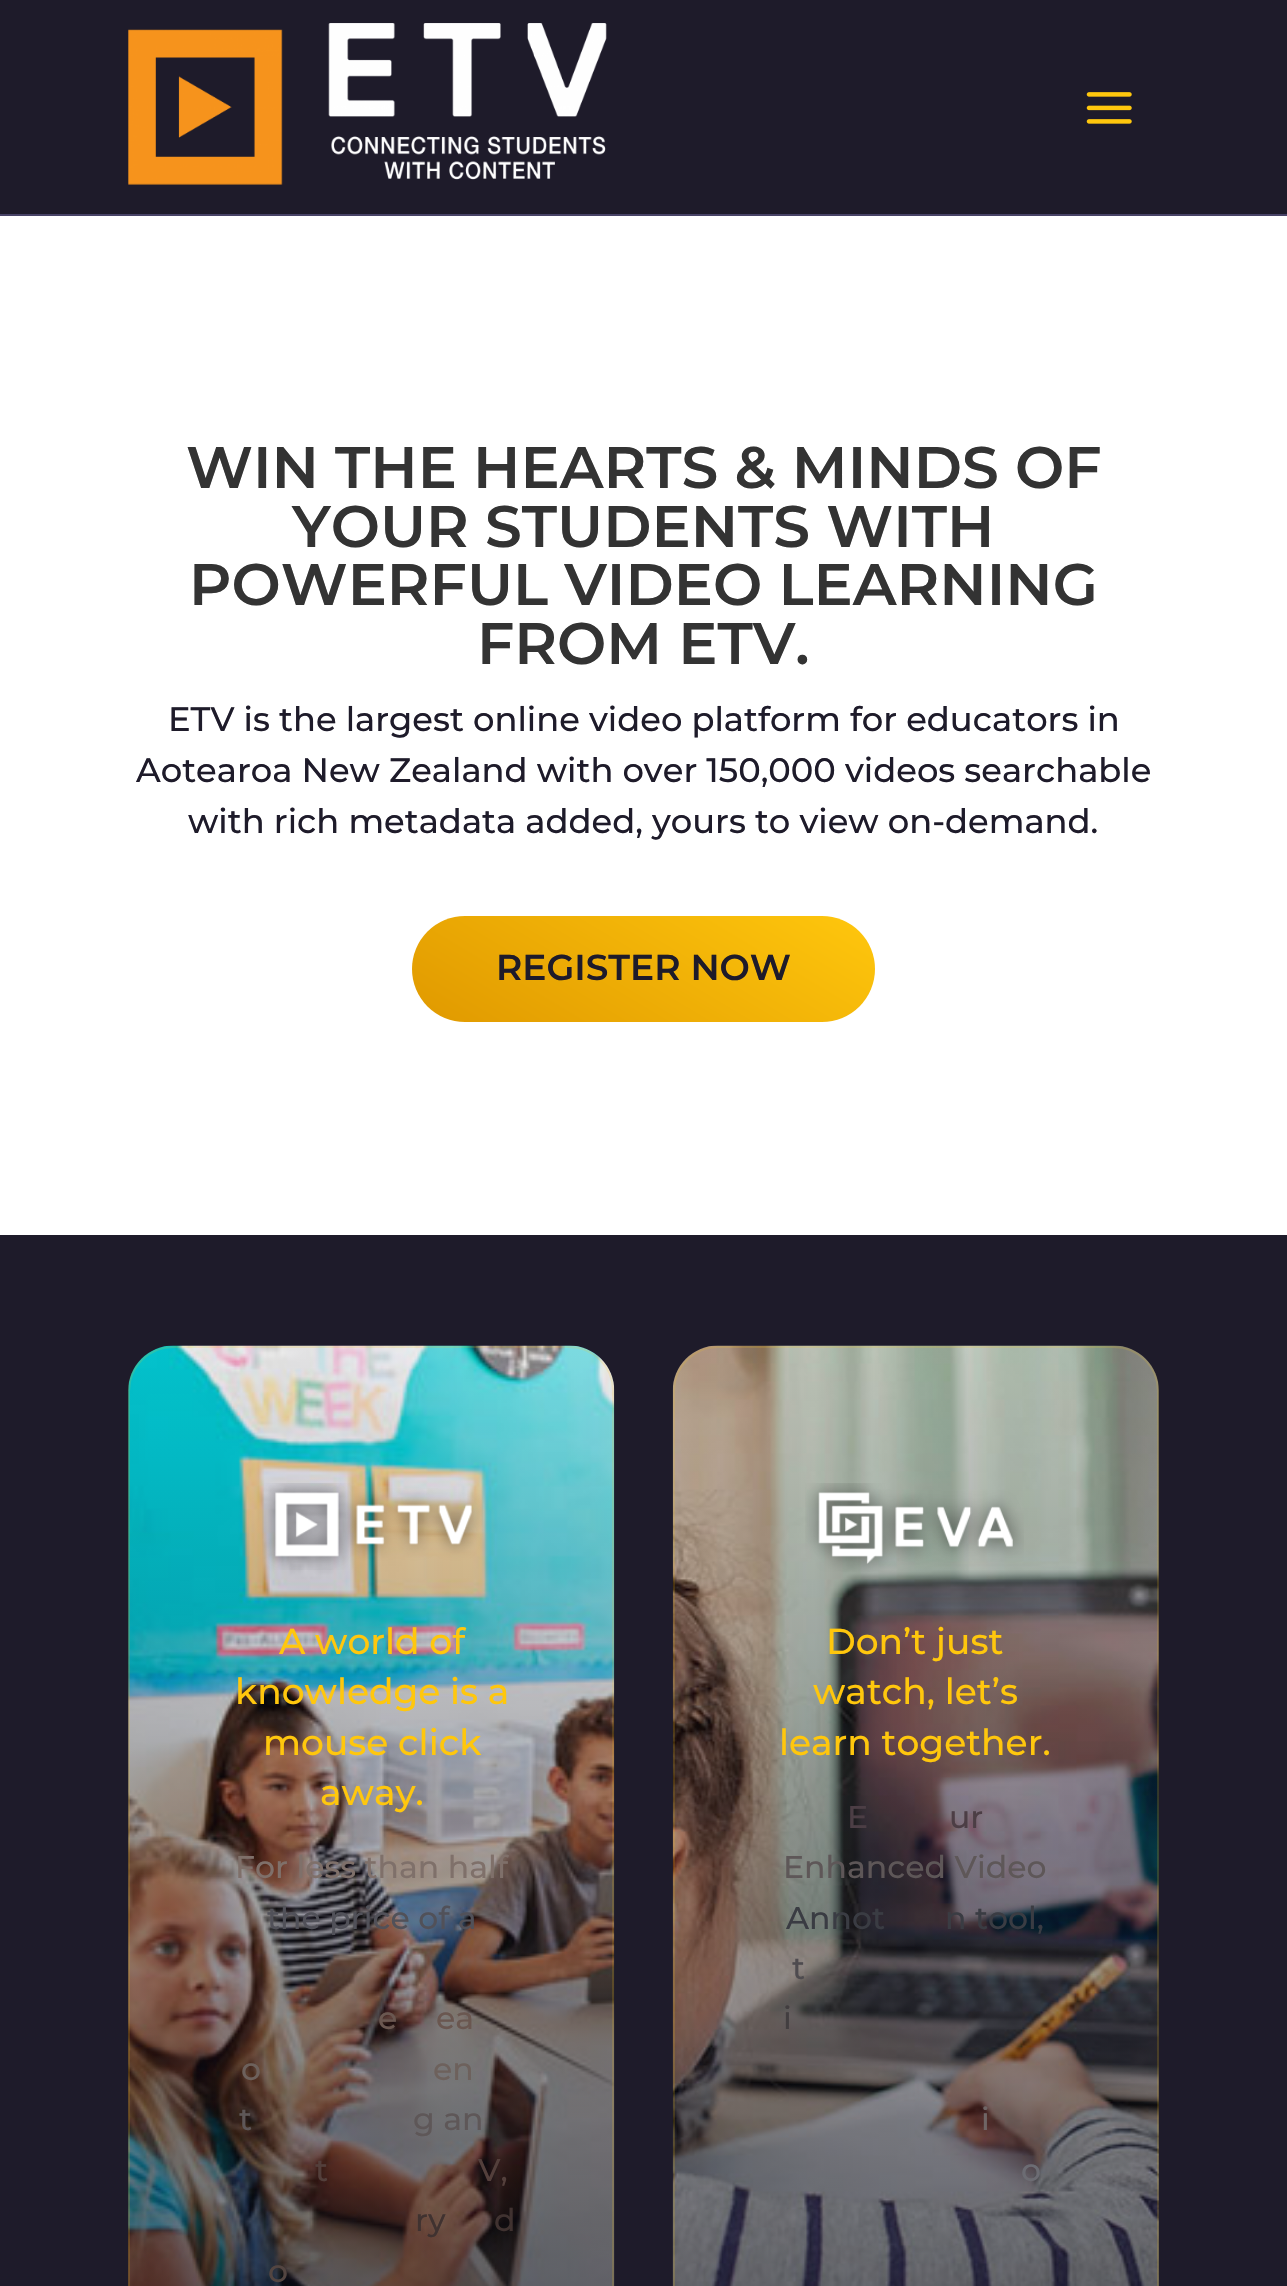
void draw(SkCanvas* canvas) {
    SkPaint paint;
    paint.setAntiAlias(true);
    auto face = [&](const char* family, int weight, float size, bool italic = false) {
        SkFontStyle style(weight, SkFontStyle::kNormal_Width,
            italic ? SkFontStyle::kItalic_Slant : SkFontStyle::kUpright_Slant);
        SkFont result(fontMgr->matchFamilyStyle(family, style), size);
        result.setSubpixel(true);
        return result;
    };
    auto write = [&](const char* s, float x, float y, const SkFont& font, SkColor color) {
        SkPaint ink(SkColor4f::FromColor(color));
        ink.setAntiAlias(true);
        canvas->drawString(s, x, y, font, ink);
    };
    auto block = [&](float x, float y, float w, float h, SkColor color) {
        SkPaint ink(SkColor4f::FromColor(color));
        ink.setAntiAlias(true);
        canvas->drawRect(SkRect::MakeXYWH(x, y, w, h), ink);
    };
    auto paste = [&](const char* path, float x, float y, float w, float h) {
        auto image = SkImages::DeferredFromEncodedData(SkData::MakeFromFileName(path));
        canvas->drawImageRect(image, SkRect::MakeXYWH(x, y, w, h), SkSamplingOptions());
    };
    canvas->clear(SK_ColorWHITE);
    block(0, 0, 1287, 214, SkColorSetRGB(30, 27, 42));
    block(0, 214, 1287, 2, SkColorSetRGB(71, 66, 102));
    paste("pic1.png", 128, 23, 479, 162);
    paste("pic2.png", 1086, 92, 46, 32);
    auto kFont1 = face("Montserrat", 100, 58.5f);
    write("WIN THE HEARTS & MINDS OF", 186, 488, kFont1, SkColorSetRGB(51, 51, 51));
    write("YOUR STUDENTS WITH", 292, 547, kFont1, SkColorSetRGB(51, 51, 51));
    write("POWERFUL VIDEO LEARNING", 189, 605, kFont1, SkColorSetRGB(51, 51, 51));
    write("FROM ETV.", 477, 664, kFont1, SkColorSetRGB(51, 51, 51));
    auto kFont2 = face("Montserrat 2", 100, 33.75f);
    write("ETV is the largest online video platform for educators in", 168, 731, kFont2, SkColorSetRGB(30, 27, 42));
    write("Aotearoa New Zealand with over 150,000 videos searchable", 136, 782, kFont2, SkColorSetRGB(30, 27, 42));
    write("with rich metadata added, yours to view on-demand.", 188, 833, kFont2, SkColorSetRGB(30, 27, 42));
    {
        const SkColor colors[] = {SkColorSetRGB(255, 199, 13), SkColorSetRGB(224, 153, 0)};
        const float stops[] = {0, 1};
        const SkPoint ends[] = {{728, 827}, {559, 1110}};
        paint.setShader(SkGradientShader::MakeLinear(ends, colors, stops, 2, SkTileMode::kClamp));
        paint.setAlpha(255);
    }
    canvas->drawRoundRect(SkRect::MakeXYWH(412, 916, 463, 106), 53, 53, paint);
    auto kFont3 = face("Montserrat", 100, 36);
    write("REGISTER NOW", 496, 980, kFont3, SkColorSetRGB(30, 27, 42));
    block(0, 1235, 1287, 1051, SkColorSetRGB(30, 27, 42));
    paste("pic3.png", 128, 1345, 487, 941);
    paint.setStyle(SkPaint::kStroke_Style);
    paint.setStrokeWidth(2);
    paint.setShader(nullptr);
    paint.setColor(SkColorSetARGB(41, 255, 199, 13));
    canvas->drawRoundRect(SkRect::MakeXYWH(129, 1347, 484, 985), 44, 44, paint);
    paste("pic4.png", 262, 1483, 221, 87);
    auto kFont4 = face("Montserrat 2", 100, 36);
    write("A world of", 279, 1654, kFont4, SkColorSetRGB(255, 199, 13));
    write("knowledge is a", 235, 1704, kFont4, SkColorSetRGB(255, 199, 13));
    write("mouse click", 263, 1755, kFont4, SkColorSetRGB(255, 199, 13));
    write("away.", 320, 1805, kFont4, SkColorSetRGB(255, 199, 13));
    auto kFont5 = face("Montserrat 2", 100, 31.5f);
    write("For less than half", 235, 1878, kFont5, SkColorSetRGB(127, 112, 106));
    write("the price of a", 267, 1929, kFont5, SkColorSetRGB(81, 81, 89));
    write("e", 378, 2029, kFont5, SkColorSetRGB(106, 87, 80));
    write("ea", 436, 2029, kFont5, SkColorSetRGB(106, 87, 80));
    write("o", 241, 2080, kFont5, SkColorSetRGB(109, 97, 92));
    write("en", 433, 2080, kFont5, SkColorSetRGB(109, 97, 92));
    write("t", 239, 2130, kFont5, SkColorSetRGB(94, 87, 88));
    write("g an", 413, 2130, kFont5, SkColorSetRGB(94, 87, 88));
    write("t", 315, 2181, kFont5, SkColorSetRGB(83, 63, 59));
    write("V,", 478, 2181, kFont5, SkColorSetRGB(83, 63, 59));
    write("ry", 415, 2231, kFont5, SkColorSetRGB(64, 50, 48));
    write("d", 494, 2231, kFont5, SkColorSetRGB(64, 50, 48));
    write("o", 268, 2282, kFont5, SkColorSetRGB(83, 69, 65));
    paste("pic5.png", 672, 1345, 487, 941);
    canvas->drawRoundRect(SkRect::MakeXYWH(674, 1347, 484, 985), 44, 44, paint);
    paste("pic6.png", 805, 1483, 219, 89);
    write("Don’t just", 826, 1654, kFont4, SkColorSetRGB(255, 199, 13));
    write("watch, let’s", 813, 1704, kFont4, SkColorSetRGB(255, 199, 13));
    write("learn together.", 779, 1755, kFont4, SkColorSetRGB(255, 199, 13));
    write("E", 847, 1828, kFont5, SkColorSetRGB(76, 62, 69));
    write("ur", 949, 1828, kFont5, SkColorSetRGB(76, 62, 69));
    write("Enhanced Video", 783, 1878, kFont5, SkColorSetRGB(94, 87, 88));
    write("Annot", 786, 1929, kFont5, SkColorSetRGB(58, 60, 67));
    write("n tool,", 945, 1929, kFont5, SkColorSetRGB(58, 60, 67));
    write("t", 792, 1979, kFont5, SkColorSetRGB(78, 75, 79));
    write("i", 783, 2029, kFont5, SkColorSetRGB(66, 62, 64));
    write("i", 981, 2130, kFont5, SkColorSetRGB(111, 101, 101));
    write("o", 1021, 2181, kFont5, SkColorSetRGB(108, 108, 115));
}
